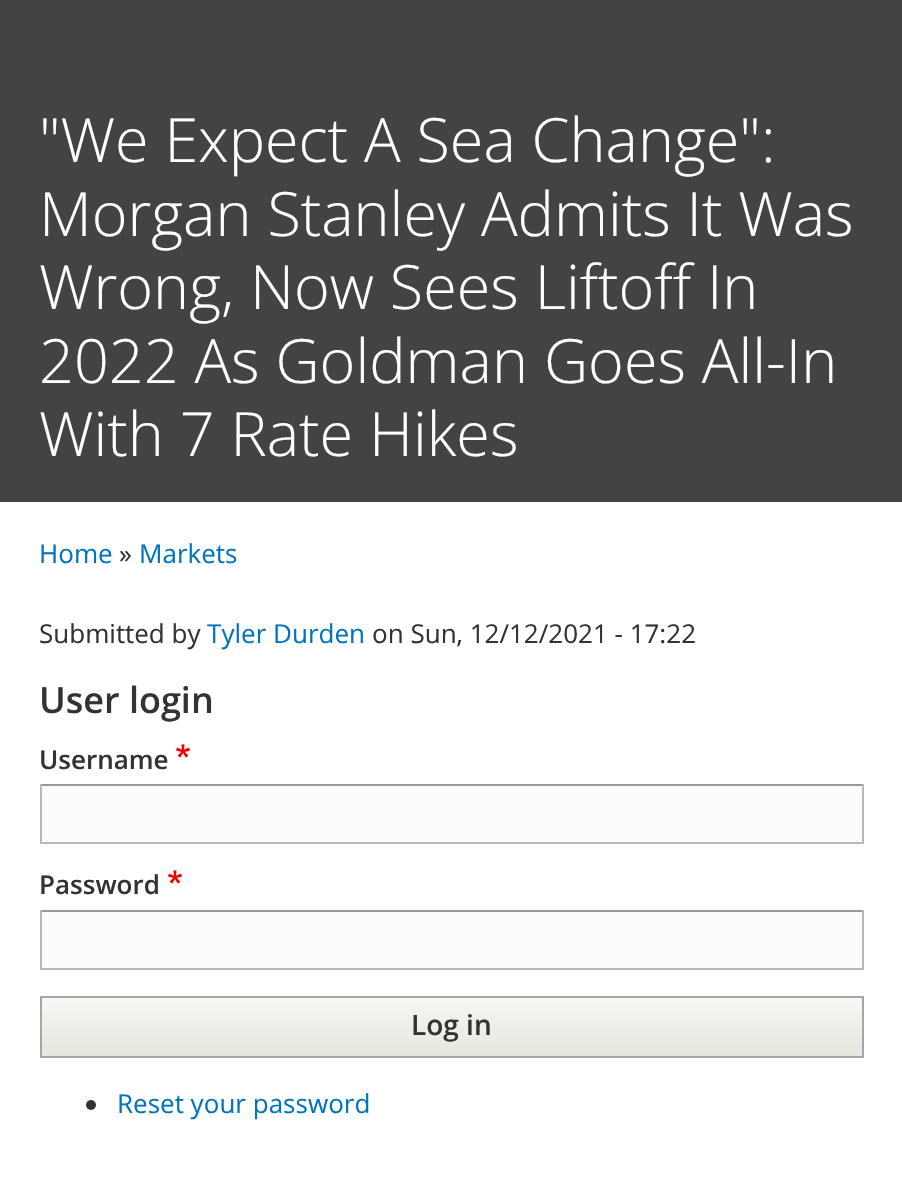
void draw(SkCanvas* canvas) {
    SkPaint paint;
    paint.setAntiAlias(true);
    auto face = [&](const char* family, int weight, float size, bool italic = false) {
        SkFontStyle style(weight, SkFontStyle::kNormal_Width,
            italic ? SkFontStyle::kItalic_Slant : SkFontStyle::kUpright_Slant);
        SkFont result(fontMgr->matchFamilyStyle(family, style), size);
        result.setSubpixel(true);
        return result;
    };
    auto write = [&](const char* s, float x, float y, const SkFont& font, SkColor color) {
        SkPaint ink(SkColor4f::FromColor(color));
        ink.setAntiAlias(true);
        canvas->drawString(s, x, y, font, ink);
    };
    auto block = [&](float x, float y, float w, float h, SkColor color) {
        SkPaint ink(SkColor4f::FromColor(color));
        ink.setAntiAlias(true);
        canvas->drawRect(SkRect::MakeXYWH(x, y, w, h), ink);
    };
    auto paste = [&](const char* path, float x, float y, float w, float h) {
        auto image = SkImages::DeferredFromEncodedData(SkData::MakeFromFileName(path));
        canvas->drawImageRect(image, SkRect::MakeXYWH(x, y, w, h), SkSamplingOptions());
    };
    canvas->clear(SK_ColorWHITE);
    block(0, 0, 902, 502, SkColorSetRGB(67, 67, 67));
    auto kFont1 = face("Open Sans", 300, 61.1f);
    write("\"We Expect A Sea Change\":", 39, 162, kFont1, SK_ColorWHITE);
    write("Morgan Stanley Admits It Was", 39, 236, kFont1, SK_ColorWHITE);
    write("Wrong, Now Sees Liftoff In", 39, 309, kFont1, SK_ColorWHITE);
    write("2022 As Goldman Goes All-In", 39, 383, kFont1, SK_ColorWHITE);
    write("With 7 Rate Hikes", 39, 456, kFont1, SK_ColorWHITE);
    auto kFont2 = face("Open Sans", 400, 26);
    write("Home", 39, 563, kFont2, SkColorSetRGB(0, 116, 189));
    write("»", 119, 563, kFont2, SkColorSetRGB(51, 51, 51));
    write("Markets", 139, 563, kFont2, SkColorSetRGB(0, 116, 189));
    write("Submitted by", 39, 643, kFont2, SkColorSetRGB(51, 51, 51));
    write("Tyler Durden", 207, 643, kFont2, SkColorSetRGB(0, 116, 189));
    write("on Sun, 12/12/2021 - 17:22", 372, 643, kFont2, SkColorSetRGB(51, 51, 51));
    auto kFont3 = face("Open Sans", 600, 36);
    write("User login", 39, 713, kFont3, SkColorSetRGB(51, 51, 51));
    auto kFont4 = face("Open Sans", 600, 26);
    write("Username", 39, 769, kFont4, SkColorSetRGB(51, 51, 51));
    paste("pic1.png", 176, 744, 14, 14);
    block(42, 786, 820, 56, SkColorSetRGB(252, 252, 250));
    block(40, 784, 824, 2, SkColorSetRGB(153, 153, 153));
    block(862, 784, 2, 60, SkColorSetRGB(184, 184, 184));
    block(40, 842, 824, 2, SkColorSetRGB(184, 184, 184));
    block(40, 784, 2, 60, SkColorSetRGB(184, 184, 184));
    write("Password", 39, 894, kFont4, SkColorSetRGB(51, 51, 51));
    paste("pic1.png", 168, 870, 14, 14);
    block(42, 912, 820, 56, SkColorSetRGB(252, 252, 250));
    block(40, 910, 824, 2, SkColorSetRGB(153, 153, 153));
    block(862, 910, 2, 60, SkColorSetRGB(184, 184, 184));
    block(40, 968, 824, 2, SkColorSetRGB(184, 184, 184));
    block(40, 910, 2, 60, SkColorSetRGB(184, 184, 184));
    {
        const SkColor colors[] = {SkColorSetRGB(246, 246, 243), SkColorSetRGB(231, 231, 223)};
        const float stops[] = {0, 1};
        const SkPoint ends[] = {{452, 998}, {452, 1056}};
        paint.setShader(SkGradientShader::MakeLinear(ends, colors, stops, 2, SkTileMode::kClamp));
        paint.setAlpha(255);
    }
    canvas->drawRect(SkRect::MakeXYWH(42, 998, 820, 58), paint);
    paint.setStyle(SkPaint::kStroke_Style);
    paint.setStrokeWidth(2);
    paint.setShader(nullptr);
    paint.setColor(SkColorSetRGB(166, 166, 166));
    canvas->drawRect(SkRect::MakeXYWH(41, 997, 822, 60), paint);
    auto kFont5 = face("Open Sans", 600, 28);
    write("Log in", 411, 1035, kFont5, SkColorSetRGB(51, 51, 51));
    paint.setStyle(SkPaint::kFill_Style);
    paint.setColor(SkColorSetRGB(51, 51, 51));
    canvas->drawCircle(91, 1105, 5, paint);
    write("Reset your password", 117, 1113, kFont2, SkColorSetRGB(0, 116, 189));
}
